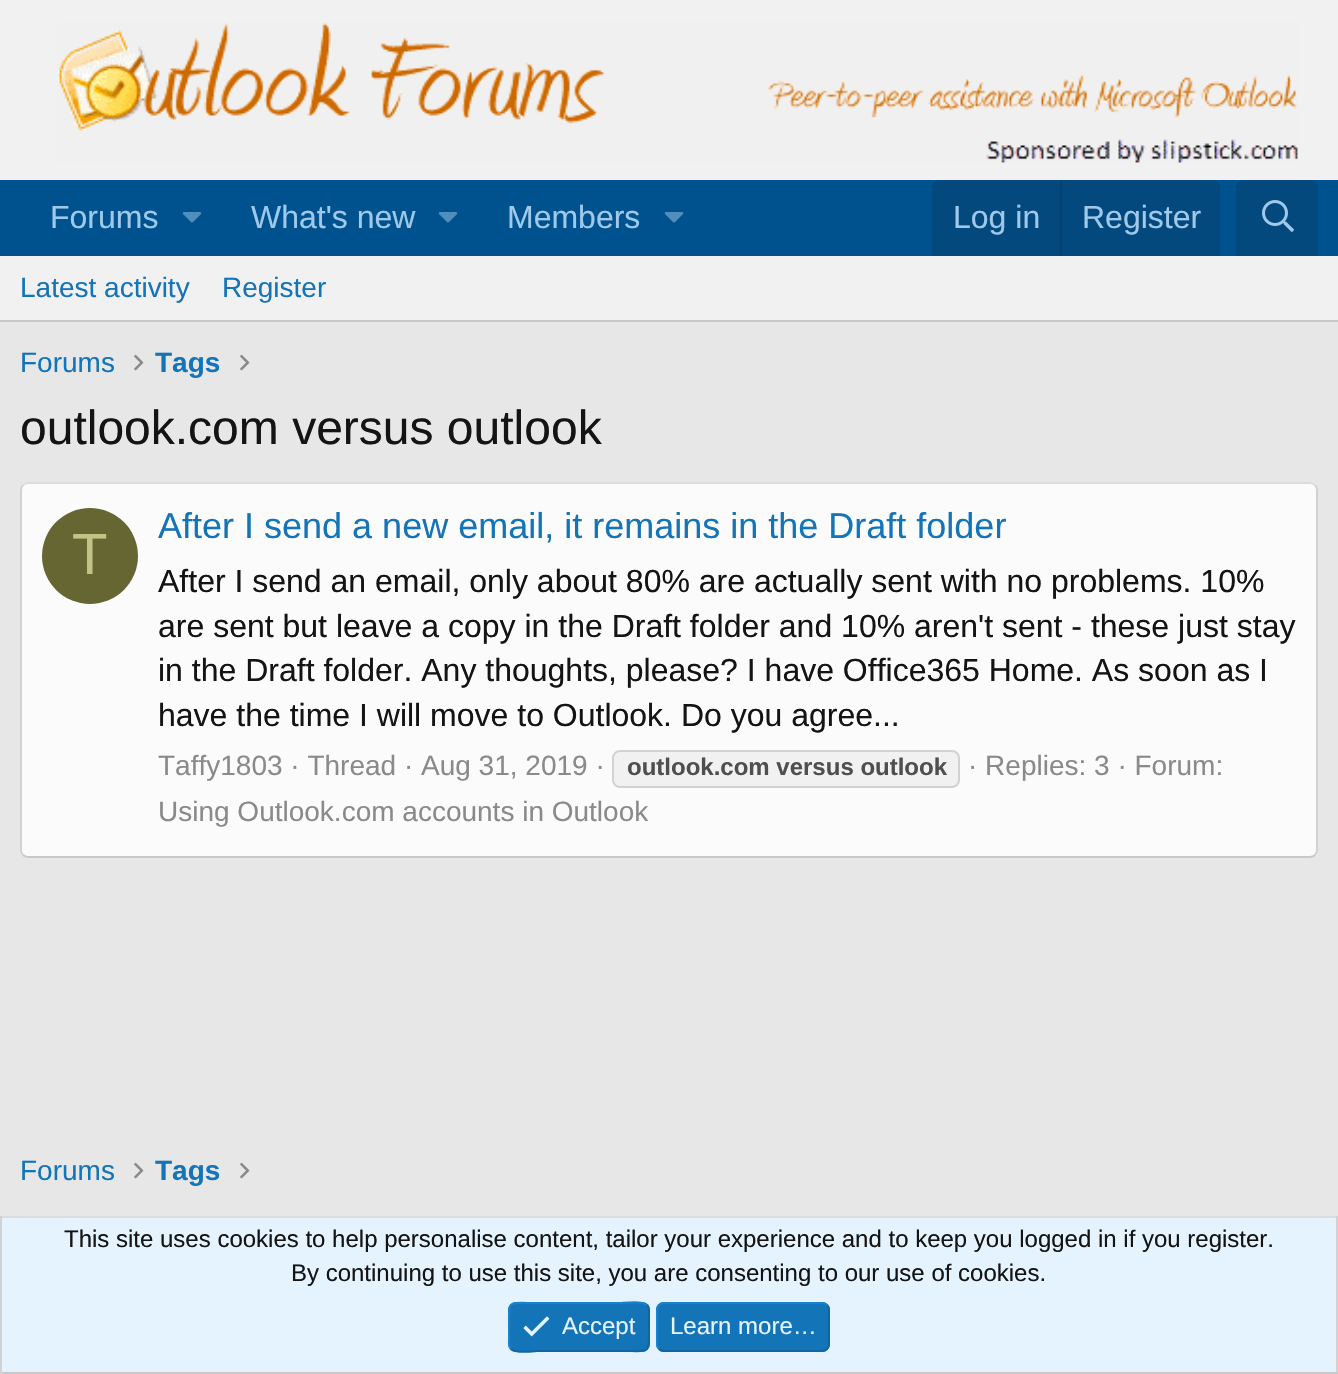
void draw(SkCanvas* canvas) {
    SkPaint paint;
    paint.setAntiAlias(true);
    auto face = [&](const char* family, int weight, float size, bool italic = false) {
        SkFontStyle style(weight, SkFontStyle::kNormal_Width,
            italic ? SkFontStyle::kItalic_Slant : SkFontStyle::kUpright_Slant);
        SkFont result(fontMgr->matchFamilyStyle(family, style), size);
        result.setSubpixel(true);
        return result;
    };
    auto write = [&](const char* s, float x, float y, const SkFont& font, SkColor color) {
        SkPaint ink(SkColor4f::FromColor(color));
        ink.setAntiAlias(true);
        canvas->drawString(s, x, y, font, ink);
    };
    auto block = [&](float x, float y, float w, float h, SkColor color) {
        SkPaint ink(SkColor4f::FromColor(color));
        ink.setAntiAlias(true);
        canvas->drawRect(SkRect::MakeXYWH(x, y, w, h), ink);
    };
    auto card = [&](float x, float y, float w, float h, float radius, SkColor color) {
        SkPaint ink(SkColor4f::FromColor(color));
        ink.setAntiAlias(true);
        canvas->drawRoundRect(SkRect::MakeXYWH(x, y, w, h), radius, radius, ink);
    };
    auto paste = [&](const char* path, float x, float y, float w, float h) {
        auto image = SkImages::DeferredFromEncodedData(SkData::MakeFromFileName(path));
        canvas->drawImageRect(image, SkRect::MakeXYWH(x, y, w, h), SkSamplingOptions());
    };
    canvas->clear(SkColorSetRGB(231, 231, 231));
    block(0, 0, 1338, 180, SkColorSetRGB(241, 241, 241));
    paste("pic1.png", 57, 22, 1241, 141);
    block(0, 180, 1338, 76, SkColorSetRGB(0, 82, 143));
    auto kFont1 = face("Liberation Sans", 400, 32);
    write("Forums", 50, 228, kFont1, SkColorSetRGB(159, 201, 234));
    paste("pic2.png", 182, 212, 20, 11);
    write("What's new", 251, 228, kFont1, SkColorSetRGB(159, 201, 234));
    paste("pic2.png", 438, 212, 20, 11);
    write("Members", 507, 228, kFont1, SkColorSetRGB(159, 201, 234));
    paste("pic2.png", 664, 212, 20, 11);
    paint.setColor(SkColorSetRGB(3, 73, 125));
    canvas->drawPath(SkPathBuilder().moveTo(940, 180).lineTo(1212, 180).cubicTo(1216.5f, 180, 1220, 183.5f, 1220, 188).lineTo(1220, 256).lineTo(932, 256).lineTo(932, 188).cubicTo(932, 183.5f, 935.5f, 180, 940, 180).close().detach(), paint);
    write("Log in", 953, 228, kFont1, SkColorSetRGB(159, 201, 234));
    block(1060, 180, 2, 76, SkColorSetRGB(6, 65, 109));
    write("Register", 1082, 228, kFont1, SkColorSetRGB(159, 201, 234));
    canvas->drawPath(SkPathBuilder().moveTo(1244, 180).lineTo(1310, 180).cubicTo(1314.5f, 180, 1318, 183.5f, 1318, 188).lineTo(1318, 256).lineTo(1236, 256).lineTo(1236, 188).cubicTo(1236, 183.5f, 1239.5f, 180, 1244, 180).close().detach(), paint);
    paste("pic3.png", 1262, 200, 32, 32);
    block(0, 256, 1338, 64, SkColorSetRGB(241, 241, 241));
    block(0, 320, 1338, 2, SkColorSetRGB(200, 200, 200));
    auto kFont2 = face("Liberation Sans", 400, 28);
    write("Latest activity", 20, 297, kFont2, SkColorSetRGB(20, 116, 184));
    write("Register", 222, 297, kFont2, SkColorSetRGB(20, 116, 184));
    write("Forums", 20, 372, kFont2, SkColorSetRGB(20, 116, 184));
    paste("pic4.png", 134, 354, 10, 17);
    auto kFont3 = face("Liberation Sans", 700, 28);
    write("Tags", 155, 372, kFont3, SkColorSetRGB(20, 116, 184));
    paste("pic4.png", 240, 354, 10, 17);
    auto kFont4 = face("Liberation Sans", 400, 48);
    write("outlook.com versus outlook", 20, 444, kFont4, SkColorSetRGB(20, 20, 20));
    card(20, 482, 1298, 376, 8, SkColorSetRGB(251, 251, 251));
    paint.setStyle(SkPaint::kStroke_Style);
    paint.setStrokeWidth(2);
    paint.setColor(SkColorSetRGB(220, 220, 220));
    canvas->drawPath(SkPathBuilder().moveTo(23, 485).cubicTo(24.5f, 483.5f, 26, 483, 28, 483).lineTo(1310, 483).cubicTo(1312, 483, 1313.5f, 483.5f, 1315, 485).detach(), paint);
    paint.setColor(SkColorSetRGB(210, 210, 210));
    canvas->drawPath(SkPathBuilder().moveTo(1315, 485).cubicTo(1316.5f, 486.5f, 1317, 488, 1317, 490).lineTo(1317, 850).cubicTo(1317, 852, 1316.5f, 853.5f, 1315, 855).detach(), paint);
    paint.setColor(SkColorSetRGB(200, 200, 200));
    canvas->drawPath(SkPathBuilder().moveTo(1315, 855).cubicTo(1313.5f, 856.5f, 1312, 857, 1310, 857).lineTo(28, 857).cubicTo(26, 857, 24.5f, 856.5f, 23, 855).detach(), paint);
    paint.setColor(SkColorSetRGB(210, 210, 210));
    canvas->drawPath(SkPathBuilder().moveTo(23, 855).cubicTo(21.5f, 853.5f, 21, 852, 21, 850).lineTo(21, 490).cubicTo(21, 488, 21.5f, 486.5f, 23, 485).detach(), paint);
    paint.setStyle(SkPaint::kFill_Style);
    paint.setColor(SkColorSetRGB(102, 102, 51));
    canvas->drawCircle(90, 556, 48, paint);
    auto kFont5 = face("Liberation Sans", 400, 58);
    write("T", 72, 574, kFont5, SkColorSetRGB(195, 195, 136));
    auto kFont6 = face("Liberation Sans", 400, 36);
    write("After I send a new email, it remains in the Draft folder", 158, 538, kFont6, SkColorSetRGB(20, 116, 184));
    write("After I send an email, only about 80% are actually sent with no problems. 10%", 158, 592, kFont1, SkColorSetRGB(20, 20, 20));
    write("are sent but leave a copy in the Draft folder and 10% aren't sent - these just stay", 158, 637, kFont1, SkColorSetRGB(20, 20, 20));
    write("in the Draft folder. Any thoughts, please? I have Office365 Home. As soon as I", 158, 681, kFont1, SkColorSetRGB(20, 20, 20));
    write("have the time I will move to Outlook. Do you agree...", 158, 726, kFont1, SkColorSetRGB(20, 20, 20));
    write("Taffy1803 · Thread · Aug 31, 2019 ·", 158, 775, kFont2, SkColorSetRGB(138, 138, 138));
    paint.setColor(SkColorSetRGB(241, 241, 241));
    canvas->drawRoundRect(SkRect::MakeXYWH(613, 751, 346, 36), 7, 7, paint);
    paint.setStyle(SkPaint::kStroke_Style);
    paint.setColor(SkColorSetRGB(210, 210, 210));
    canvas->drawRoundRect(SkRect::MakeXYWH(613, 751, 346, 36), 7, 7, paint);
    auto kFont7 = face("Liberation Sans", 700, 24);
    write("outlook.com versus outlook", 627, 775, kFont7, SkColorSetRGB(79, 79, 79));
    write("· Replies: 3 · Forum:", 968, 775, kFont2, SkColorSetRGB(138, 138, 138));
    write("Using Outlook.com accounts in Outlook", 158, 821, kFont2, SkColorSetRGB(138, 138, 138));
    write("Forums", 20, 1180, kFont2, SkColorSetRGB(20, 116, 184));
    paste("pic4.png", 134, 1162, 10, 17);
    write("Tags", 155, 1180, kFont3, SkColorSetRGB(20, 116, 184));
    paste("pic4.png", 240, 1162, 10, 17);
    block(2, 1218, 1334, 154, SkColorSetRGB(229, 243, 255));
    block(0, 1216, 1338, 2, SkColorSetRGB(220, 220, 220));
    block(1336, 1216, 2, 158, SkColorSetRGB(210, 210, 210));
    block(0, 1372, 1338, 2, SkColorSetRGB(200, 200, 200));
    block(0, 1216, 2, 158, SkColorSetRGB(210, 210, 210));
    auto kFont8 = face("Liberation Sans", 400, 24);
    write("This site uses cookies to help personalise content, tailor your experience and to keep you logged in if you register.", 64, 1247, kFont8, SkColorSetRGB(20, 20, 20));
    write("By continuing to use this site, you are consenting to our use of cookies.", 291, 1281, kFont8, SkColorSetRGB(20, 20, 20));
    card(508, 1302, 142, 50, 8, SkColorSetRGB(20, 116, 184));
    paint.setColor(SkColorSetRGB(18, 101, 161));
    canvas->drawPath(SkPathBuilder().moveTo(647, 1305).cubicTo(650, 1308, 649, 1312, 649, 1315.5f).lineTo(649, 1327).cubicTo(649, 1355, 651.5f, 1351, 621, 1351).lineTo(537, 1351).cubicTo(535, 1351, 516, 1354, 511, 1349).detach(), paint);
    paint.setColor(SkColorSetRGB(23, 130, 207));
    canvas->drawPath(SkPathBuilder().moveTo(511, 1349).cubicTo(508, 1346, 509, 1342, 509, 1338.5f).lineTo(509, 1327).cubicTo(509, 1299, 506.5f, 1303, 537, 1303).lineTo(621, 1303).cubicTo(623, 1303, 642, 1300, 647, 1305).detach(), paint);
    paste("pic5.png", 523, 1316, 27, 21);
    write("Accept", 562, 1334, kFont8, SkColorSetRGB(229, 243, 255));
    card(656, 1302, 174, 50, 8, SkColorSetRGB(20, 116, 184));
    paint.setColor(SkColorSetRGB(18, 101, 161));
    canvas->drawPath(SkPathBuilder().moveTo(827, 1305).cubicTo(828.5f, 1306.5f, 829, 1308, 829, 1310).lineTo(829, 1344).cubicTo(829, 1346, 828.5f, 1347.5f, 827, 1349).cubicTo(825.5f, 1350.5f, 824, 1351, 822, 1351).lineTo(664, 1351).cubicTo(662, 1351, 660.5f, 1350.5f, 659, 1349).detach(), paint);
    paint.setColor(SkColorSetRGB(23, 130, 207));
    canvas->drawPath(SkPathBuilder().moveTo(659, 1349).cubicTo(657.5f, 1347.5f, 657, 1346, 657, 1344).lineTo(657, 1310).cubicTo(657, 1308, 657.5f, 1306.5f, 659, 1305).cubicTo(660.5f, 1303.5f, 662, 1303, 664, 1303).lineTo(822, 1303).cubicTo(824, 1303, 825.5f, 1303.5f, 827, 1305).detach(), paint);
    write("Learn more…", 670, 1334, kFont8, SkColorSetRGB(229, 243, 255));
}
